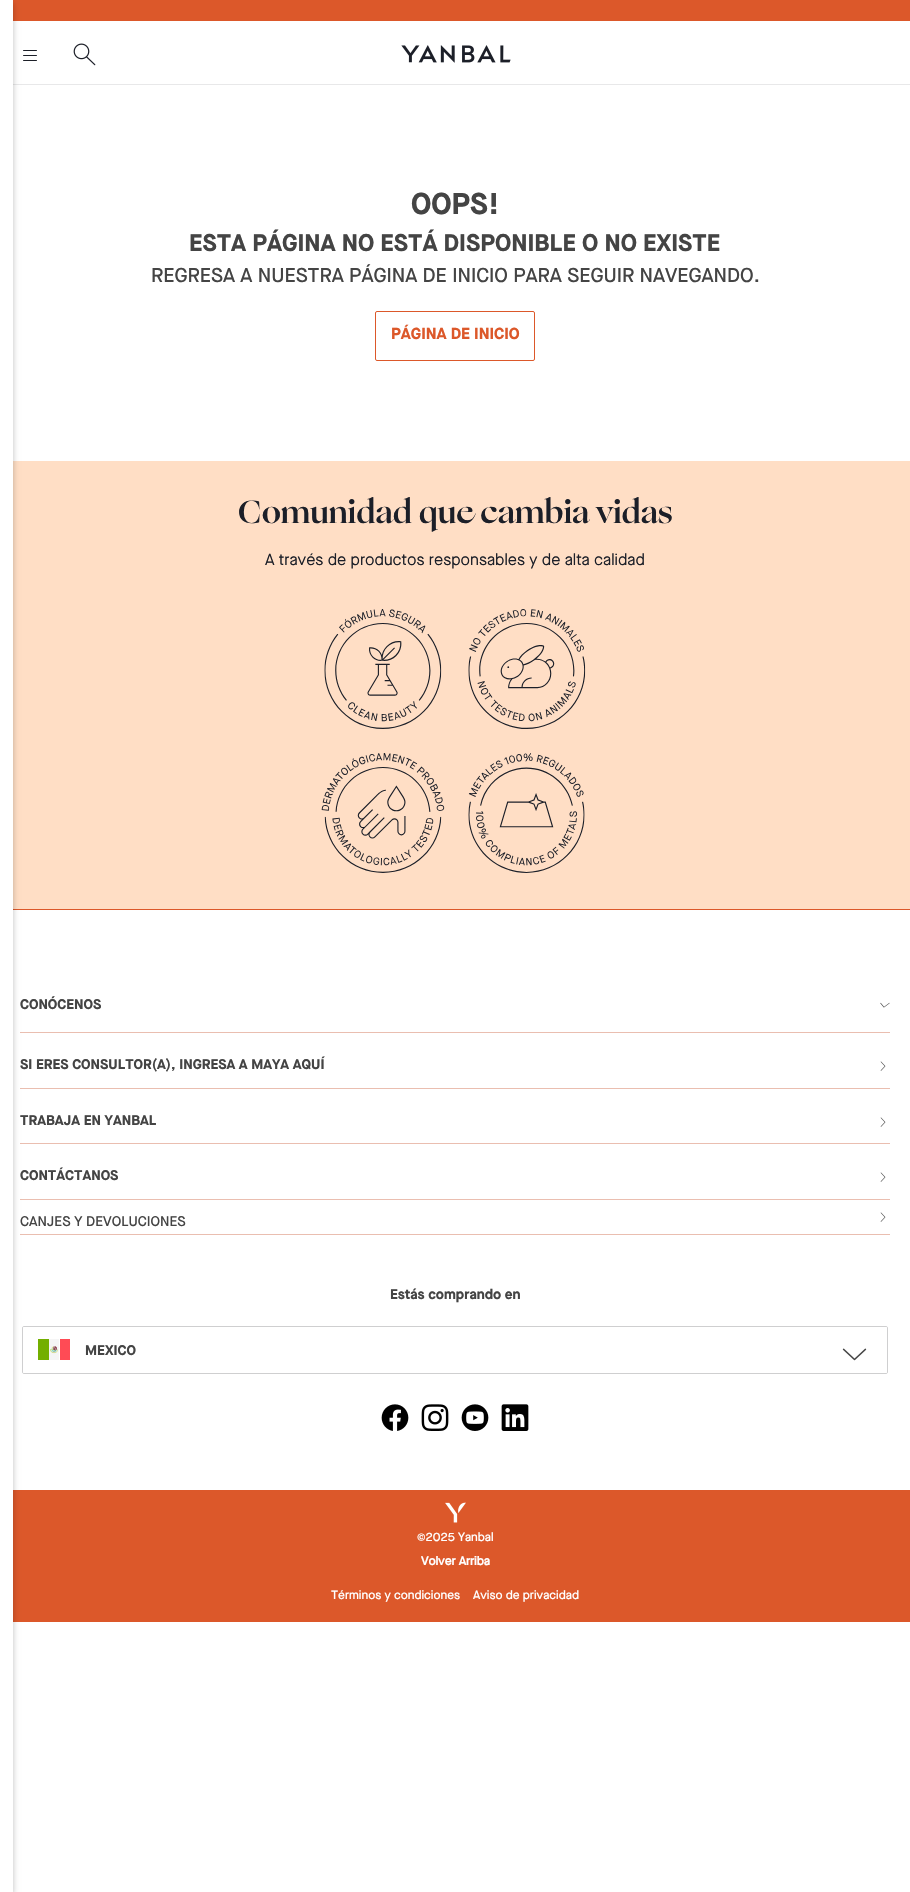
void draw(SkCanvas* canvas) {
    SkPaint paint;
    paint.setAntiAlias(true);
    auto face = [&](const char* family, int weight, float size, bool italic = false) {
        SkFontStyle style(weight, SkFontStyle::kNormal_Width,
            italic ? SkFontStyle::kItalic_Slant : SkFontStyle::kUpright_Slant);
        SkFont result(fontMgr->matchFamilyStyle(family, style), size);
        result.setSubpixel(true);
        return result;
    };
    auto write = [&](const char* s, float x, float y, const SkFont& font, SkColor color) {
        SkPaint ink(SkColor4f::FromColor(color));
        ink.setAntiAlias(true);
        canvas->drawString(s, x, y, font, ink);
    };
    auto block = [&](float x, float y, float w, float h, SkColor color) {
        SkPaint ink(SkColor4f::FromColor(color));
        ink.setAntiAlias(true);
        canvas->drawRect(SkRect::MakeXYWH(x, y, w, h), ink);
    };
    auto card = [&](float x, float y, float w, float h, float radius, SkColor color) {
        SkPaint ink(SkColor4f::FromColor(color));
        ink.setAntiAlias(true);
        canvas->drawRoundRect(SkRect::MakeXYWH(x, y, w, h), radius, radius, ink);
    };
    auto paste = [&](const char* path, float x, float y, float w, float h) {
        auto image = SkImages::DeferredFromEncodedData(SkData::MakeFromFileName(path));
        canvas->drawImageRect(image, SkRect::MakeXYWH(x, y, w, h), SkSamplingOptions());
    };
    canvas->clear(SK_ColorWHITE);
    block(13, 0, 897, 21, SkColorSetRGB(220, 88, 42));
    block(13, 84, 897, 1, SkColorSetRGB(232, 232, 233));
    block(13, 461, 897, 448, SkColorSetRGB(255, 222, 197));
    block(13, 909, 897, 1, SkColorSetRGB(220, 88, 42));
    block(20, 1032, 870, 1, SkColorSetRGB(234, 190, 176));
    block(20, 1088, 870, 1, SkColorSetRGB(234, 190, 176));
    block(20, 1143, 870, 1, SkColorSetRGB(234, 190, 176));
    block(20, 1199, 870, 1, SkColorSetRGB(234, 190, 176));
    block(20, 1234, 870, 1, SkColorSetRGB(234, 190, 176));
    paint.setStyle(SkPaint::kStroke_Style);
    paint.setStrokeWidth(1);
    paint.setColor(SkColorSetRGB(207, 207, 208));
    canvas->drawRoundRect(SkRect::MakeXYWH(22.5f, 1326.5f, 865, 47), 1.5f, 1.5f, paint);
    block(13, 1490, 897, 132, SkColorSetRGB(220, 88, 42));
    paint.setStyle(SkPaint::kFill_Style);
    paint.setColor(SkColorSetARGB(64, 0, 0, 0));
    paint.setMaskFilter(SkMaskFilter::MakeBlur(kNormal_SkBlurStyle, 3));
    canvas->drawRect(SkRect::MakeXYWH(-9, 3, 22, 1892), paint);
    paint.setMaskFilter(nullptr);
    block(0, 0, 13, 1892, SK_ColorWHITE);
    paste("pic1.png", 23, 50, 14, 11);
    paste("pic2.png", 73, 43, 23, 23);
    paste("pic3.png", 401, 45, 110, 18);
    auto kFont1 = face("Maison Neue", 700, 30);
    write("OOPS!", 411, 214, kFont1, SkColorSetRGB(68, 68, 68));
    auto kFont2 = face("Maison Neue", 700, 24);
    write("ESTA PÁGINA NO ESTÁ DISPONIBLE O NO EXISTE", 189, 251, kFont2, SkColorSetRGB(68, 68, 68));
    auto kFont3 = face("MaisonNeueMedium", 500, 20);
    write("REGRESA A NUESTRA PÁGINA DE INICIO PARA SEGUIR NAVEGANDO.", 151, 282, kFont3, SkColorSetRGB(68, 68, 68));
    paint.setStyle(SkPaint::kStroke_Style);
    paint.setColor(SkColorSetRGB(220, 88, 42));
    canvas->drawRoundRect(SkRect::MakeXYWH(375.5f, 311.5f, 159, 49), 1.5f, 1.5f, paint);
    auto kFont4 = face("Maison Neue", 700, 16);
    write("PÁGINA DE INICIO", 391, 339, kFont4, SkColorSetRGB(220, 88, 42));
    auto kFont5 = face("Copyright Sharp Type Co", 700, 32);
    write("Comunidad que cambia vidas", 238, 523, kFont5, SkColorSetRGB(28, 31, 40));
    auto kFont6 = face("Maison Neue", 400, 16);
    write("A través de productos responsables y de alta calidad", 265, 565, kFont6, SkColorSetRGB(28, 31, 40));
    paste("pic4.png", 324, 609, 118, 120);
    paste("pic5.png", 468, 609, 118, 120);
    paste("pic6.png", 321, 753, 124, 120);
    paste("pic7.png", 468, 753, 117, 120);
    auto kFont7 = face("Maison Neue", 700, 14);
    write("CONÓCENOS", 20, 1009, kFont7, SkColorSetRGB(68, 68, 68));
    paste("pic8.png", 880, 1002, 10, 6);
    write("SI ERES CONSULTOR(A), INGRESA A MAYA AQUÍ", 20, 1069, kFont7, SkColorSetRGB(68, 68, 68));
    paste("pic9.png", 880, 1061, 6, 10);
    write("TRABAJA EN YANBAL", 20, 1125, kFont7, SkColorSetRGB(68, 68, 68));
    paste("pic9.png", 880, 1117, 6, 10);
    write("CONTÁCTANOS", 20, 1180, kFont7, SkColorSetRGB(68, 68, 68));
    paste("pic9.png", 880, 1172, 6, 10);
    auto kFont8 = face("MaisonNeueMedium", 500, 14);
    write("CANJES Y DEVOLUCIONES", 20, 1226, kFont8, SkColorSetRGB(68, 68, 68));
    paste("pic9.png", 880, 1212, 6, 10);
    write("Estás comprando en", 390, 1299, kFont7, SkColorSetRGB(68, 68, 68));
    card(23, 1327, 864, 46, 1, SK_ColorWHITE);
    paste("pic10.png", 38, 1339, 32, 21);
    write("MEXICO", 85, 1355, kFont7, SkColorSetRGB(68, 68, 68));
    paste("pic11.png", 842, 1348, 25, 13);
    paste("pic12.png", 381, 1404, 28, 27);
    paste("pic13.png", 421, 1404, 28, 27);
    paste("pic14.png", 461, 1404, 28, 27);
    paste("pic15.png", 501, 1404, 28, 27);
    paste("pic16.png", 445, 1502, 21, 21);
    auto kFont9 = face("MaisonNeueMedium", 500, 12);
    write("©2025 Yanbal", 417, 1541, kFont9, SK_ColorWHITE);
    auto kFont10 = face("MaisonNeueMedium", 700, 12);
    write("Volver Arriba", 421, 1565, kFont10, SK_ColorWHITE);
    write("Términos y condiciones", 331, 1599, kFont9, SK_ColorWHITE);
    write("Aviso de privacidad", 473, 1599, kFont9, SK_ColorWHITE);
}
